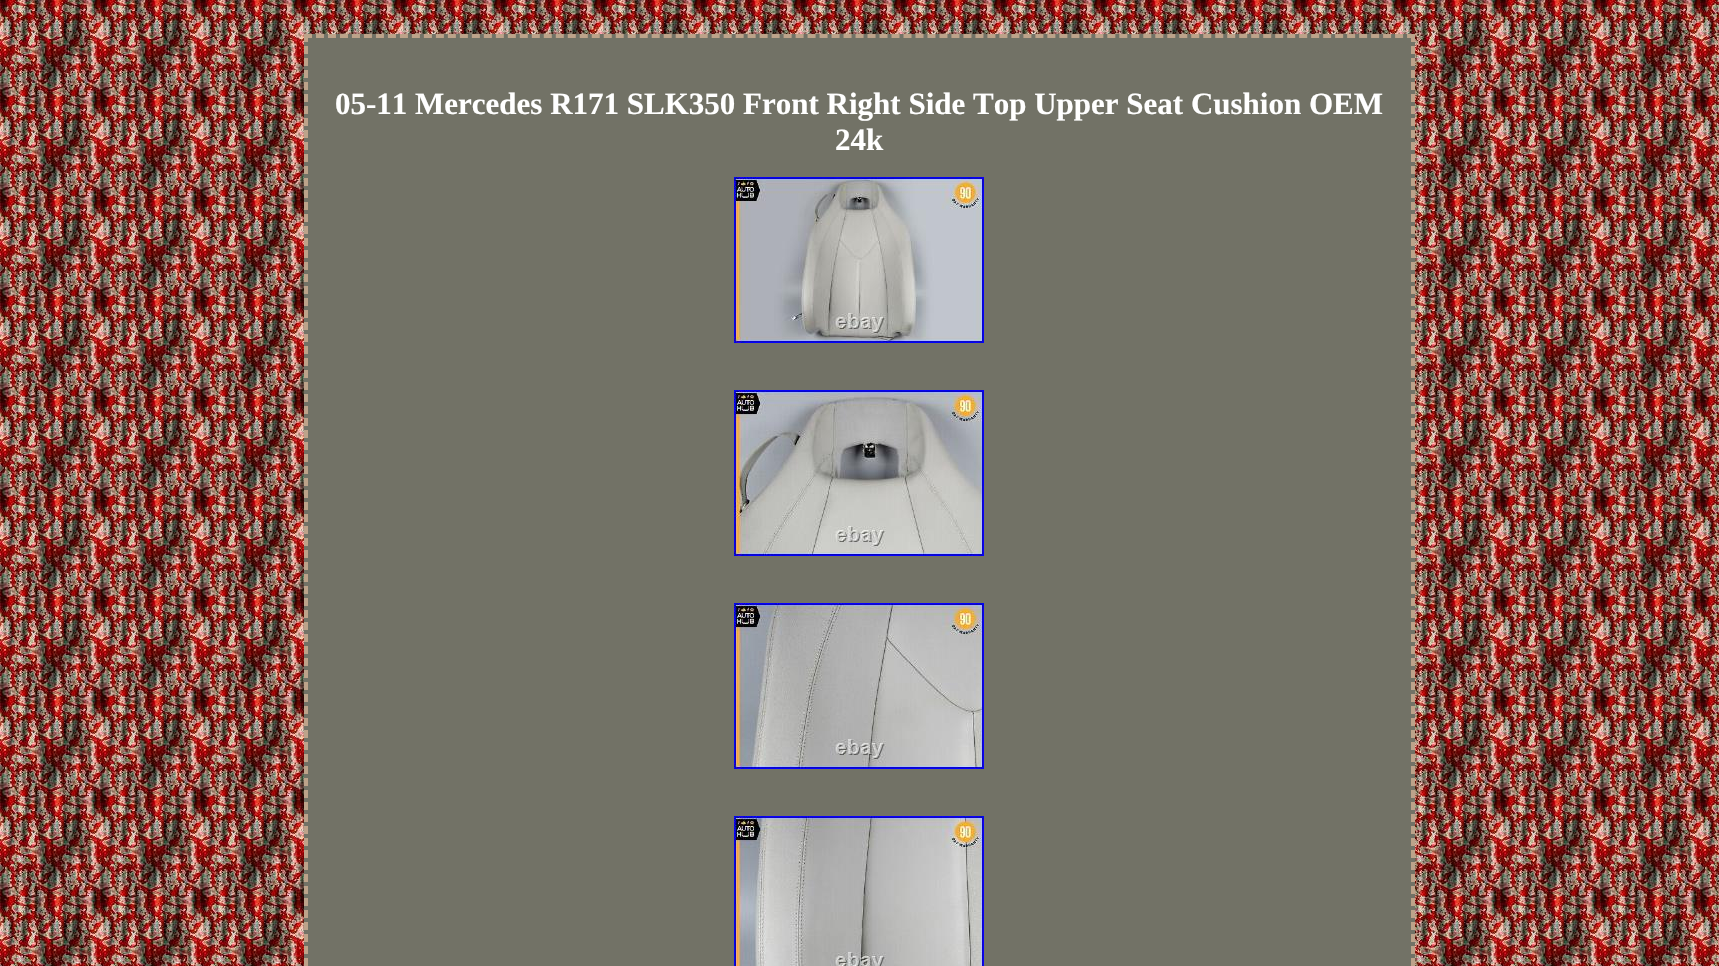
void draw(SkCanvas* canvas) {
    SkPaint paint;
    paint.setAntiAlias(true);
    auto face = [&](const char* family, int weight, float size, bool italic = false) {
        SkFontStyle style(weight, SkFontStyle::kNormal_Width,
            italic ? SkFontStyle::kItalic_Slant : SkFontStyle::kUpright_Slant);
        SkFont result(fontMgr->matchFamilyStyle(family, style), size);
        result.setSubpixel(true);
        return result;
    };
    auto write = [&](const char* s, float x, float y, const SkFont& font, SkColor color) {
        SkPaint ink(SkColor4f::FromColor(color));
        ink.setAntiAlias(true);
        canvas->drawString(s, x, y, font, ink);
    };
    auto block = [&](float x, float y, float w, float h, SkColor color) {
        SkPaint ink(SkColor4f::FromColor(color));
        ink.setAntiAlias(true);
        canvas->drawRect(SkRect::MakeXYWH(x, y, w, h), ink);
    };
    auto paste = [&](const char* path, float x, float y, float w, float h) {
        auto image = SkImages::DeferredFromEncodedData(SkData::MakeFromFileName(path));
        canvas->drawImageRect(image, SkRect::MakeXYWH(x, y, w, h), SkSamplingOptions());
    };
    canvas->clear(SK_ColorWHITE);
    paste("pic1.png", 0, 0, 1719, 966);
    block(304, 34, 1111, 932, SkColorSetRGB(114, 114, 102));
    paint.setStyle(SkPaint::kStroke_Style);
    paint.setStrokeWidth(4);
    paint.setColor(SkColorSetRGB(189, 163, 138));
    paint.setPathEffect(SkDashPathEffect::Make({{8, 3.99f}}, 0));
    canvas->drawPath(SkPathBuilder().moveTo(304, 36).lineTo(1415, 36).detach(), paint);
    paint.setPathEffect(nullptr);
    paint.setPathEffect(SkDashPathEffect::Make({{8, 4}}, 0));
    canvas->drawPath(SkPathBuilder().moveTo(1413, 34).lineTo(1413, 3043).detach(), paint);
    paint.setPathEffect(nullptr);
    paint.setPathEffect(SkDashPathEffect::Make({{8, 4}}, 0));
    canvas->drawPath(SkPathBuilder().moveTo(306, 34).lineTo(306, 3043).detach(), paint);
    paint.setPathEffect(nullptr);
    auto kFont1 = face("Liberation Serif", 700, 31);
    write("05-11 Mercedes R171 SLK350 Front Right Side Top Upper Seat Cushion OEM", 335, 114, kFont1, SK_ColorWHITE);
    write("24k", 835, 150, kFont1, SK_ColorWHITE);
    paste("pic2.png", 734, 177, 250, 166);
    paste("pic3.png", 734, 390, 250, 166);
    paste("pic4.png", 734, 603, 250, 166);
    paste("pic5.png", 734, 816, 250, 150);
}
